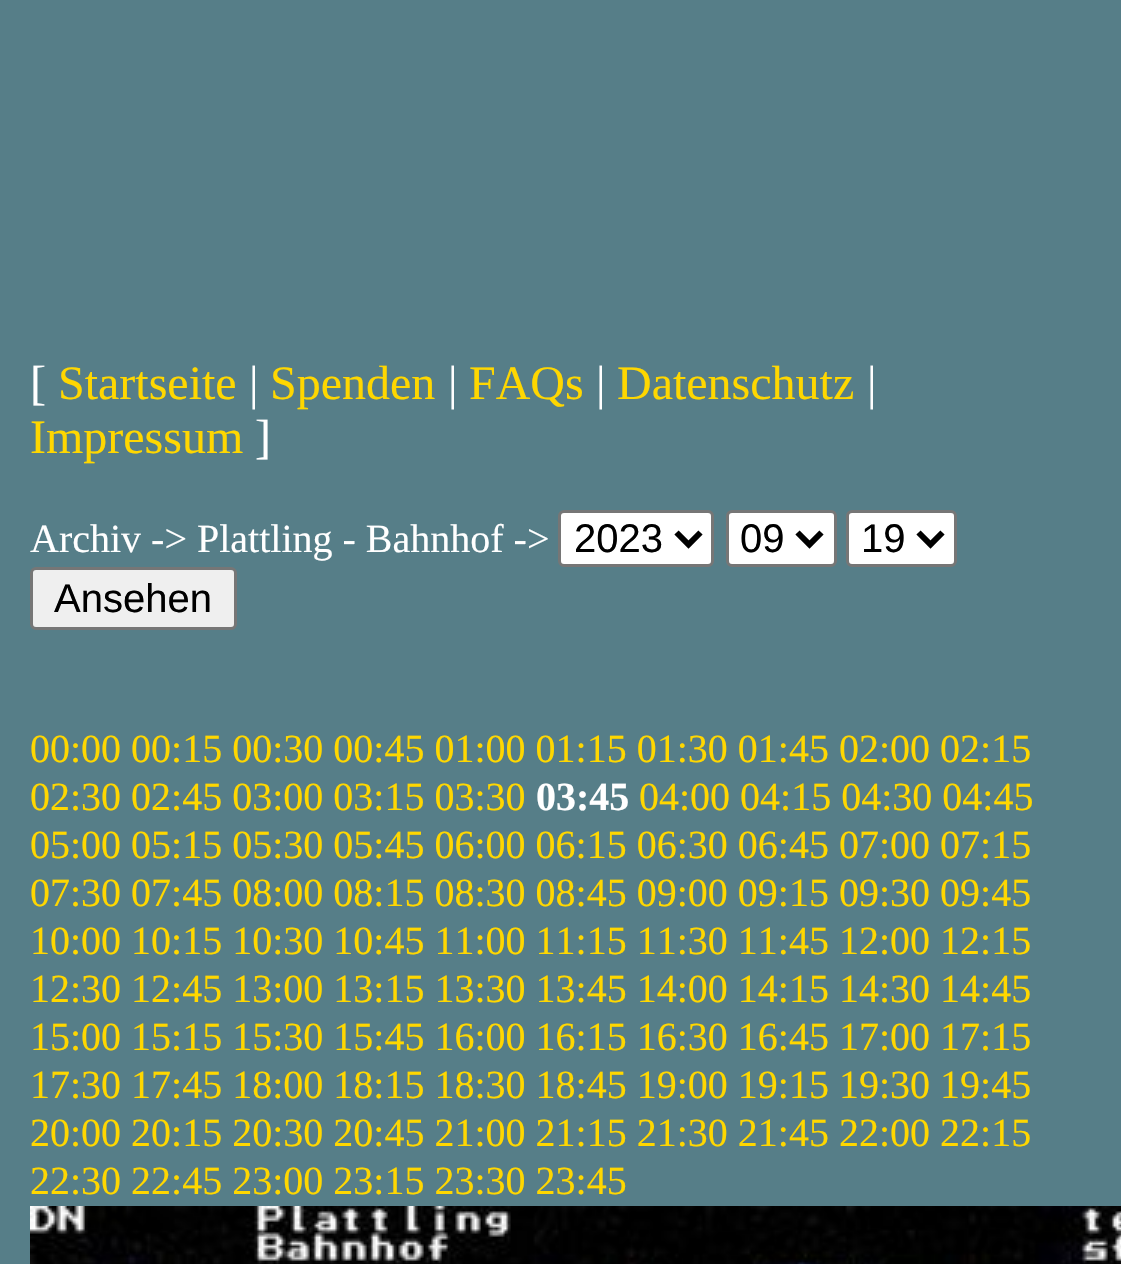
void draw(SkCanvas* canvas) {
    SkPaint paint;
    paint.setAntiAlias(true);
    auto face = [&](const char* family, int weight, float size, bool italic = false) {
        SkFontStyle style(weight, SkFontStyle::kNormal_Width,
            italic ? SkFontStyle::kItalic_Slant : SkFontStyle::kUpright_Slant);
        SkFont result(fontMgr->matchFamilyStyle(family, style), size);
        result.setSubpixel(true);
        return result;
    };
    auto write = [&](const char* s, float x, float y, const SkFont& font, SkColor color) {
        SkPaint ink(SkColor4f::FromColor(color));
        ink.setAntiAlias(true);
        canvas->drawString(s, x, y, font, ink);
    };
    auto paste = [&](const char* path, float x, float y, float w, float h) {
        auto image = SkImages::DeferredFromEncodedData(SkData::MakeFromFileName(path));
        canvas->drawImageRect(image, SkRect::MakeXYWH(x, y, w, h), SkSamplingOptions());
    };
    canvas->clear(SkColorSetRGB(86, 126, 136));
    auto kFont1 = face("Liberation Serif", 400, 48);
    write("[", 30, 399, kFont1, SK_ColorWHITE);
    write("Startseite", 58, 399, kFont1, SkColorSetRGB(255, 215, 0));
    write("|", 249, 399, kFont1, SK_ColorWHITE);
    write("Spenden", 270, 399, kFont1, SkColorSetRGB(255, 215, 0));
    write("|", 448, 399, kFont1, SK_ColorWHITE);
    write("FAQs", 469, 399, kFont1, SkColorSetRGB(255, 215, 0));
    write("|", 596, 399, kFont1, SK_ColorWHITE);
    write("Datenschutz", 617, 399, kFont1, SkColorSetRGB(255, 215, 0));
    write("|", 867, 399, kFont1, SK_ColorWHITE);
    write("Impressum", 30, 453, kFont1, SkColorSetRGB(255, 215, 0));
    write("]", 255, 453, kFont1, SK_ColorWHITE);
    auto kFont2 = face("Liberation Serif", 400, 40);
    write("Archiv -> Plattling - Bahnhof ->", 30, 552, kFont2, SK_ColorWHITE);
    paint.setColor(SK_ColorWHITE);
    canvas->drawRoundRect(SkRect::MakeXYWH(559.5f, 511.5f, 153, 54), 4.5f, 4.5f, paint);
    paint.setStyle(SkPaint::kStroke_Style);
    paint.setStrokeWidth(3);
    paint.setColor(SkColorSetRGB(118, 118, 118));
    canvas->drawRoundRect(SkRect::MakeXYWH(559.5f, 511.5f, 153, 54), 4.5f, 4.5f, paint);
    paint.setStrokeWidth(6);
    paint.setColor(SK_ColorBLACK);
    canvas->drawPath(SkPathBuilder().moveTo(676.5f, 532.5f).lineTo(688.5f, 544.5f).lineTo(700.5f, 532.5f).detach(), paint);
    auto kFont3 = face("Liberation Sans", 400, 40);
    write("2023", 574, 552, kFont3, SK_ColorBLACK);
    paint.setStyle(SkPaint::kFill_Style);
    paint.setColor(SK_ColorWHITE);
    canvas->drawRoundRect(SkRect::MakeXYWH(727.5f, 511.5f, 108, 54), 4.5f, 4.5f, paint);
    paint.setStyle(SkPaint::kStroke_Style);
    paint.setStrokeWidth(3);
    paint.setColor(SkColorSetRGB(118, 118, 118));
    canvas->drawRoundRect(SkRect::MakeXYWH(727.5f, 511.5f, 108, 54), 4.5f, 4.5f, paint);
    paint.setStrokeWidth(6);
    paint.setColor(SK_ColorBLACK);
    canvas->drawPath(SkPathBuilder().moveTo(797.5f, 532.5f).lineTo(809.5f, 544.5f).lineTo(821.5f, 532.5f).detach(), paint);
    write("09", 740, 552, kFont3, SK_ColorBLACK);
    paint.setStyle(SkPaint::kFill_Style);
    paint.setColor(SK_ColorWHITE);
    canvas->drawRoundRect(SkRect::MakeXYWH(847.5f, 511.5f, 108, 54), 4.5f, 4.5f, paint);
    paint.setStyle(SkPaint::kStroke_Style);
    paint.setStrokeWidth(3);
    paint.setColor(SkColorSetRGB(118, 118, 118));
    canvas->drawRoundRect(SkRect::MakeXYWH(847.5f, 511.5f, 108, 54), 4.5f, 4.5f, paint);
    paint.setStrokeWidth(6);
    paint.setColor(SK_ColorBLACK);
    canvas->drawPath(SkPathBuilder().moveTo(918.5f, 532.5f).lineTo(930.5f, 544.5f).lineTo(942.5f, 532.5f).detach(), paint);
    write("19", 861, 552, kFont3, SK_ColorBLACK);
    paint.setStyle(SkPaint::kFill_Style);
    paint.setColor(SkColorSetRGB(239, 239, 239));
    canvas->drawRoundRect(SkRect::MakeXYWH(31.5f, 568.5f, 204, 60), 4.5f, 4.5f, paint);
    paint.setStyle(SkPaint::kStroke_Style);
    paint.setStrokeWidth(3);
    paint.setColor(SkColorSetRGB(118, 118, 118));
    canvas->drawRoundRect(SkRect::MakeXYWH(31.5f, 568.5f, 204, 60), 4.5f, 4.5f, paint);
    write("Ansehen", 54, 612, kFont3, SK_ColorBLACK);
    write("00:00 00:15 00:30 00:45 01:00 01:15 01:30 01:45 02:00 02:15", 30, 762, kFont2, SkColorSetRGB(255, 215, 0));
    write("02:30 02:45 03:00 03:15 03:30", 30, 810, kFont2, SkColorSetRGB(255, 215, 0));
    auto kFont4 = face("Liberation Serif", 700, 40);
    write("03:45", 536, 810, kFont4, SK_ColorWHITE);
    write("04:00 04:15 04:30 04:45", 639, 810, kFont2, SkColorSetRGB(255, 215, 0));
    write("05:00 05:15 05:30 05:45 06:00 06:15 06:30 06:45 07:00 07:15", 30, 858, kFont2, SkColorSetRGB(255, 215, 0));
    write("07:30 07:45 08:00 08:15 08:30 08:45 09:00 09:15 09:30 09:45", 30, 906, kFont2, SkColorSetRGB(255, 215, 0));
    write("10:00 10:15 10:30 10:45 11:00 11:15 11:30 11:45 12:00 12:15", 30, 954, kFont2, SkColorSetRGB(255, 215, 0));
    write("12:30 12:45 13:00 13:15 13:30 13:45 14:00 14:15 14:30 14:45", 30, 1002, kFont2, SkColorSetRGB(255, 215, 0));
    write("15:00 15:15 15:30 15:45 16:00 16:15 16:30 16:45 17:00 17:15", 30, 1050, kFont2, SkColorSetRGB(255, 215, 0));
    write("17:30 17:45 18:00 18:15 18:30 18:45 19:00 19:15 19:30 19:45", 30, 1098, kFont2, SkColorSetRGB(255, 215, 0));
    write("20:00 20:15 20:30 20:45 21:00 21:15 21:30 21:45 22:00 22:15", 30, 1146, kFont2, SkColorSetRGB(255, 215, 0));
    write("22:30 22:45 23:00 23:15 23:30 23:45", 30, 1194, kFont2, SkColorSetRGB(255, 215, 0));
    paste("pic1.png", 30, 1206, 1091, 58);
}
